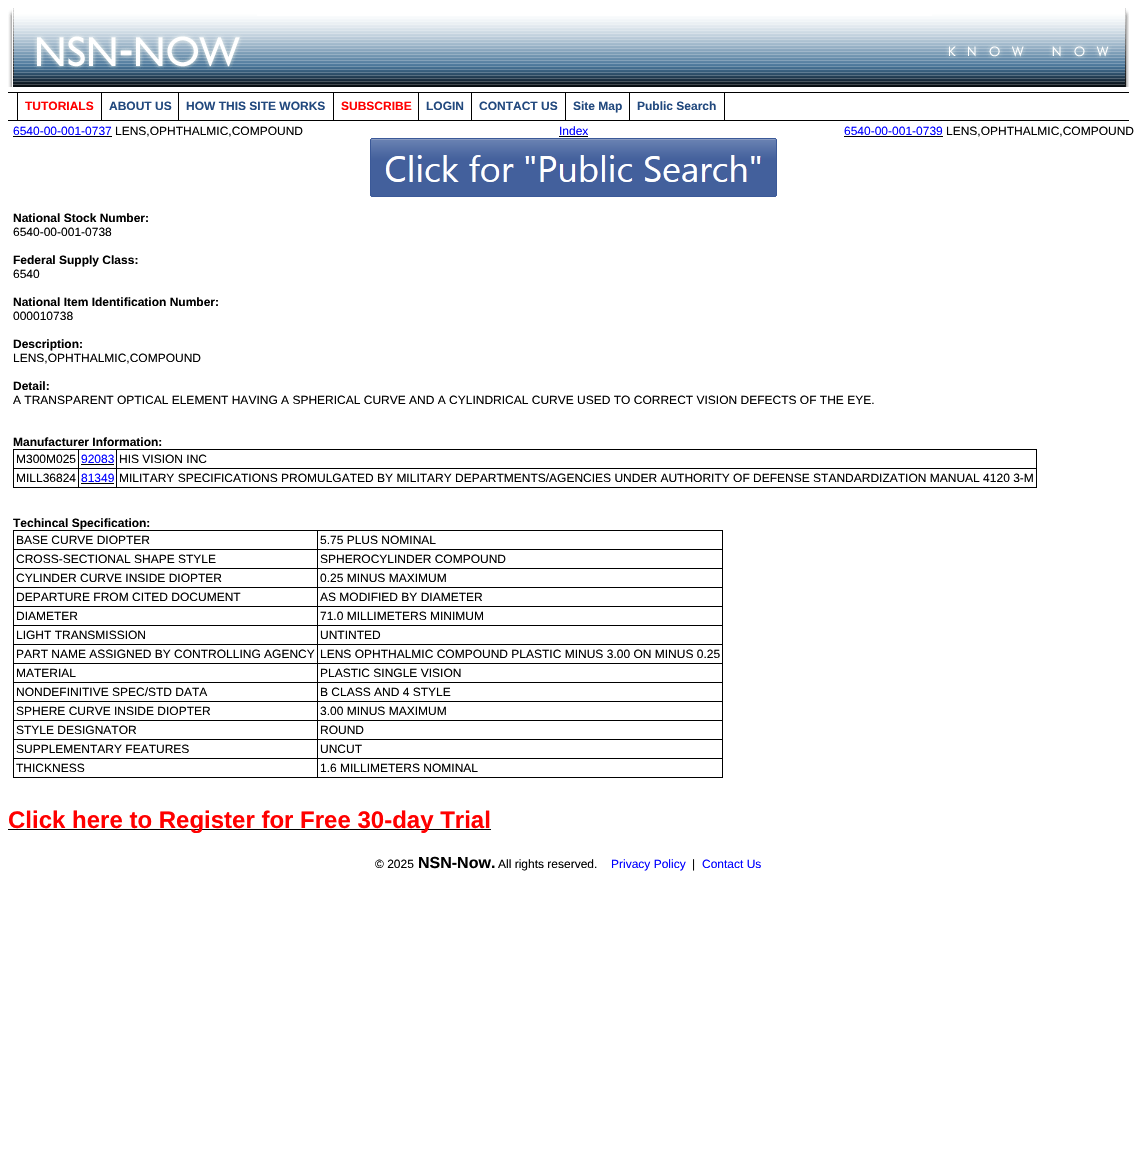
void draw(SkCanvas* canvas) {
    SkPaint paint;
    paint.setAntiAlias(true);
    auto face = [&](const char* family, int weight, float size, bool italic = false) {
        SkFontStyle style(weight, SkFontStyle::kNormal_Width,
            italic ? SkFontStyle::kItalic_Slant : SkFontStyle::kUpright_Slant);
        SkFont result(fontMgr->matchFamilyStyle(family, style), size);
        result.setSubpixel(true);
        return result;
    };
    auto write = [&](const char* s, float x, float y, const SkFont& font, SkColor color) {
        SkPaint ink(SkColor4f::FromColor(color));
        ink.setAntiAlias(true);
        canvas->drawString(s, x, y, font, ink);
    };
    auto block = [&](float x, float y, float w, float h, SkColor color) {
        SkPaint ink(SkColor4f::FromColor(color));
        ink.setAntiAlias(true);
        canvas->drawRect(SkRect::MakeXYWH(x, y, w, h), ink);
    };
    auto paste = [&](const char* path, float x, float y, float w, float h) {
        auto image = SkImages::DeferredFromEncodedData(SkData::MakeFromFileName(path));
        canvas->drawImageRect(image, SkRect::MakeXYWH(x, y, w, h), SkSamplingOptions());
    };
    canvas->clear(SK_ColorWHITE);
    paste("pic1.png", 8, 8, 249, 79);
    paste("pic2.png", 257, 16, 675, 71);
    paste("pic3.png", 932, 8, 197, 79);
    block(8, 92, 1121, 1, SK_ColorBLACK);
    block(8, 120, 1121, 1, SK_ColorBLACK);
    block(17, 93, 1, 27, SK_ColorBLACK);
    block(101, 93, 1, 27, SK_ColorBLACK);
    auto kFont1 = face("Liberation Sans", 700, 12);
    write("TUTORIALS", 25, 110, kFont1, SkColorSetRGB(255, 0, 0));
    block(178, 93, 1, 27, SK_ColorBLACK);
    write("ABOUT US", 109, 110, kFont1, SkColorSetRGB(34, 73, 126));
    block(333, 93, 1, 27, SK_ColorBLACK);
    write("HOW THIS SITE WORKS", 186, 110, kFont1, SkColorSetRGB(34, 73, 126));
    block(418, 93, 1, 27, SK_ColorBLACK);
    write("SUBSCRIBE", 341, 110, kFont1, SkColorSetRGB(255, 0, 0));
    block(471, 93, 1, 27, SK_ColorBLACK);
    write("LOGIN", 426, 110, kFont1, SkColorSetRGB(34, 73, 126));
    block(565, 93, 1, 27, SK_ColorBLACK);
    write("CONTACT US", 479, 110, kFont1, SkColorSetRGB(34, 73, 126));
    block(629, 93, 1, 27, SK_ColorBLACK);
    write("Site Map", 573, 110, kFont1, SkColorSetRGB(34, 73, 126));
    block(724, 93, 1, 27, SK_ColorBLACK);
    write("Public Search", 637, 110, kFont1, SkColorSetRGB(34, 73, 126));
    auto kFont2 = face("Liberation Sans", 400, 12);
    write("6540-00-001-0737", 13, 135, kFont2, SkColorSetRGB(0, 0, 255));
    block(13, 136, 99, 1, SK_ColorBLACK);
    write("LENS,OPHTHALMIC,COMPOUND", 115, 135, kFont2, SK_ColorBLACK);
    write("Index", 559, 135, kFont2, SkColorSetRGB(0, 0, 255));
    block(559, 136, 29, 1, SK_ColorBLACK);
    write("6540-00-001-0739", 844, 135, kFont2, SkColorSetRGB(0, 0, 255));
    block(844, 136, 99, 1, SK_ColorBLACK);
    write("LENS,OPHTHALMIC,COMPOUND", 946, 135, kFont2, SK_ColorBLACK);
    paste("pic4.png", 370, 138, 407, 59);
    write("National Stock Number:", 13, 222, kFont1, SK_ColorBLACK);
    write("6540-00-001-0738", 13, 236, kFont2, SK_ColorBLACK);
    write("Federal Supply Class:", 13, 264, kFont1, SK_ColorBLACK);
    write("6540", 13, 278, kFont2, SK_ColorBLACK);
    write("National Item Identification Number:", 13, 306, kFont1, SK_ColorBLACK);
    write("000010738", 13, 320, kFont2, SK_ColorBLACK);
    write("Description:", 13, 348, kFont1, SK_ColorBLACK);
    write("LENS,OPHTHALMIC,COMPOUND", 13, 362, kFont2, SK_ColorBLACK);
    write("Detail:", 13, 390, kFont1, SK_ColorBLACK);
    write("A TRANSPARENT OPTICAL ELEMENT HAVING A SPHERICAL CURVE AND A CYLINDRICAL CURVE USED TO CORRECT VISION DEFECTS OF THE EYE.", 13, 404, kFont2, SK_ColorBLACK);
    write("Manufacturer Information:", 13, 446, kFont1, SK_ColorBLACK);
    block(13, 449, 1024, 1, SK_ColorBLACK);
    block(1036, 449, 1, 39, SK_ColorBLACK);
    block(13, 487, 1024, 1, SK_ColorBLACK);
    block(13, 449, 1, 39, SK_ColorBLACK);
    write("M300M025", 16, 463, kFont2, SK_ColorBLACK);
    block(116, 468, 921, 1, SK_ColorBLACK);
    block(116, 468, 1, 20, SK_ColorBLACK);
    block(78, 468, 39, 1, SK_ColorBLACK);
    block(78, 468, 1, 20, SK_ColorBLACK);
    block(13, 468, 66, 1, SK_ColorBLACK);
    block(78, 449, 1, 20, SK_ColorBLACK);
    write("92083", 81, 463, kFont2, SkColorSetRGB(0, 0, 255));
    block(81, 464, 33, 1, SK_ColorBLACK);
    block(116, 449, 1, 20, SK_ColorBLACK);
    write("HIS VISION INC", 119, 463, kFont2, SK_ColorBLACK);
    write("MILL36824", 16, 482, kFont2, SK_ColorBLACK);
    write("81349", 81, 482, kFont2, SkColorSetRGB(0, 0, 255));
    block(81, 483, 33, 1, SK_ColorBLACK);
    write("MILITARY SPECIFICATIONS PROMULGATED BY MILITARY DEPARTMENTS/AGENCIES UNDER AUTHORITY OF DEFENSE STANDARDIZATION MANUAL 4120 3-M", 119, 482, kFont2, SK_ColorBLACK);
    write("Techincal Specification:", 13, 527, kFont1, SK_ColorBLACK);
    block(13, 530, 710, 1, SK_ColorBLACK);
    block(722, 530, 1, 248, SK_ColorBLACK);
    block(13, 777, 710, 1, SK_ColorBLACK);
    block(13, 530, 1, 248, SK_ColorBLACK);
    write("BASE CURVE DIOPTER", 16, 544, kFont2, SK_ColorBLACK);
    block(317, 549, 406, 1, SK_ColorBLACK);
    block(317, 568, 406, 1, SK_ColorBLACK);
    block(317, 587, 406, 1, SK_ColorBLACK);
    block(317, 606, 406, 1, SK_ColorBLACK);
    block(317, 625, 406, 1, SK_ColorBLACK);
    block(317, 644, 406, 1, SK_ColorBLACK);
    block(317, 663, 406, 1, SK_ColorBLACK);
    block(317, 682, 406, 1, SK_ColorBLACK);
    block(317, 701, 406, 1, SK_ColorBLACK);
    block(317, 720, 406, 1, SK_ColorBLACK);
    block(317, 739, 406, 1, SK_ColorBLACK);
    block(317, 758, 406, 1, SK_ColorBLACK);
    block(317, 758, 1, 20, SK_ColorBLACK);
    block(13, 758, 305, 1, SK_ColorBLACK);
    block(317, 739, 1, 20, SK_ColorBLACK);
    block(13, 739, 305, 1, SK_ColorBLACK);
    block(317, 720, 1, 20, SK_ColorBLACK);
    block(13, 720, 305, 1, SK_ColorBLACK);
    block(317, 701, 1, 20, SK_ColorBLACK);
    block(13, 701, 305, 1, SK_ColorBLACK);
    block(317, 682, 1, 20, SK_ColorBLACK);
    block(13, 682, 305, 1, SK_ColorBLACK);
    block(317, 663, 1, 20, SK_ColorBLACK);
    block(13, 663, 305, 1, SK_ColorBLACK);
    block(317, 644, 1, 20, SK_ColorBLACK);
    block(13, 644, 305, 1, SK_ColorBLACK);
    block(317, 625, 1, 20, SK_ColorBLACK);
    block(13, 625, 305, 1, SK_ColorBLACK);
    block(317, 606, 1, 20, SK_ColorBLACK);
    block(13, 606, 305, 1, SK_ColorBLACK);
    block(317, 587, 1, 20, SK_ColorBLACK);
    block(13, 587, 305, 1, SK_ColorBLACK);
    block(317, 568, 1, 20, SK_ColorBLACK);
    block(13, 568, 305, 1, SK_ColorBLACK);
    block(317, 549, 1, 20, SK_ColorBLACK);
    block(13, 549, 305, 1, SK_ColorBLACK);
    block(317, 530, 1, 20, SK_ColorBLACK);
    write("5.75 PLUS NOMINAL", 320, 544, kFont2, SK_ColorBLACK);
    write("CROSS-SECTIONAL SHAPE STYLE", 16, 563, kFont2, SK_ColorBLACK);
    write("SPHEROCYLINDER COMPOUND", 320, 563, kFont2, SK_ColorBLACK);
    write("CYLINDER CURVE INSIDE DIOPTER", 16, 582, kFont2, SK_ColorBLACK);
    write("0.25 MINUS MAXIMUM", 320, 582, kFont2, SK_ColorBLACK);
    write("DEPARTURE FROM CITED DOCUMENT", 16, 601, kFont2, SK_ColorBLACK);
    write("AS MODIFIED BY DIAMETER", 320, 601, kFont2, SK_ColorBLACK);
    write("DIAMETER", 16, 620, kFont2, SK_ColorBLACK);
    write("71.0 MILLIMETERS MINIMUM", 320, 620, kFont2, SK_ColorBLACK);
    write("LIGHT TRANSMISSION", 16, 639, kFont2, SK_ColorBLACK);
    write("UNTINTED", 320, 639, kFont2, SK_ColorBLACK);
    write("PART NAME ASSIGNED BY CONTROLLING AGENCY", 16, 658, kFont2, SK_ColorBLACK);
    write("LENS OPHTHALMIC COMPOUND PLASTIC MINUS 3.00 ON MINUS 0.25", 320, 658, kFont2, SK_ColorBLACK);
    write("MATERIAL", 16, 677, kFont2, SK_ColorBLACK);
    write("PLASTIC SINGLE VISION", 320, 677, kFont2, SK_ColorBLACK);
    write("NONDEFINITIVE SPEC/STD DATA", 16, 696, kFont2, SK_ColorBLACK);
    write("B CLASS AND 4 STYLE", 320, 696, kFont2, SK_ColorBLACK);
    write("SPHERE CURVE INSIDE DIOPTER", 16, 715, kFont2, SK_ColorBLACK);
    write("3.00 MINUS MAXIMUM", 320, 715, kFont2, SK_ColorBLACK);
    write("STYLE DESIGNATOR", 16, 734, kFont2, SK_ColorBLACK);
    write("ROUND", 320, 734, kFont2, SK_ColorBLACK);
    write("SUPPLEMENTARY FEATURES", 16, 753, kFont2, SK_ColorBLACK);
    write("UNCUT", 320, 753, kFont2, SK_ColorBLACK);
    write("THICKNESS", 16, 772, kFont2, SK_ColorBLACK);
    write("1.6 MILLIMETERS NOMINAL", 320, 772, kFont2, SK_ColorBLACK);
    block(8, 829, 483, 1, SK_ColorBLACK);
    auto kFont3 = face("Liberation Sans", 700, 24);
    write("Click here to Register for Free 30-day Trial", 8, 828, kFont3, SkColorSetRGB(255, 0, 0));
    write("© 2025", 375, 868, kFont2, SK_ColorBLACK);
    auto kFont4 = face("Liberation Sans", 700, 16);
    write("NSN-Now.", 418, 868, kFont4, SK_ColorBLACK);
    write("All rights reserved.", 498, 868, kFont2, SK_ColorBLACK);
    write("Privacy Policy", 611, 868, kFont2, SkColorSetRGB(0, 0, 255));
    write("|", 692, 868, kFont2, SK_ColorBLACK);
    write("Contact Us", 702, 868, kFont2, SkColorSetRGB(0, 0, 255));
}
